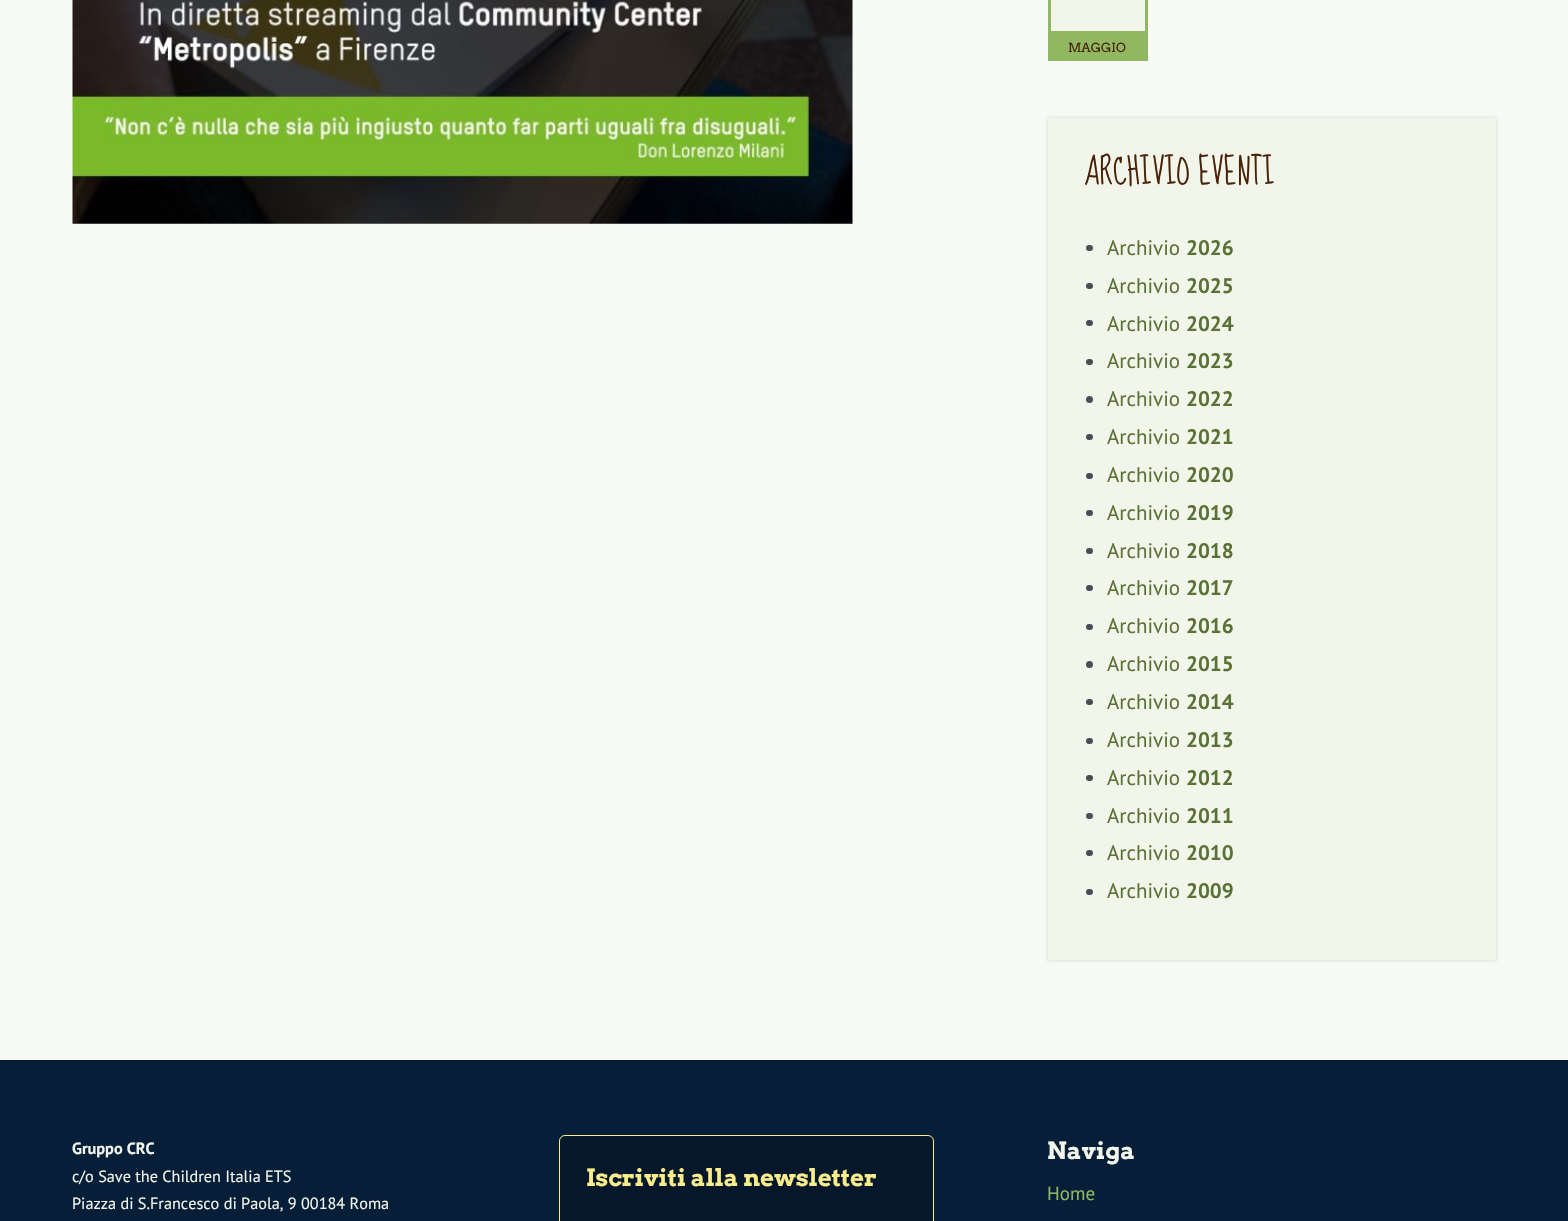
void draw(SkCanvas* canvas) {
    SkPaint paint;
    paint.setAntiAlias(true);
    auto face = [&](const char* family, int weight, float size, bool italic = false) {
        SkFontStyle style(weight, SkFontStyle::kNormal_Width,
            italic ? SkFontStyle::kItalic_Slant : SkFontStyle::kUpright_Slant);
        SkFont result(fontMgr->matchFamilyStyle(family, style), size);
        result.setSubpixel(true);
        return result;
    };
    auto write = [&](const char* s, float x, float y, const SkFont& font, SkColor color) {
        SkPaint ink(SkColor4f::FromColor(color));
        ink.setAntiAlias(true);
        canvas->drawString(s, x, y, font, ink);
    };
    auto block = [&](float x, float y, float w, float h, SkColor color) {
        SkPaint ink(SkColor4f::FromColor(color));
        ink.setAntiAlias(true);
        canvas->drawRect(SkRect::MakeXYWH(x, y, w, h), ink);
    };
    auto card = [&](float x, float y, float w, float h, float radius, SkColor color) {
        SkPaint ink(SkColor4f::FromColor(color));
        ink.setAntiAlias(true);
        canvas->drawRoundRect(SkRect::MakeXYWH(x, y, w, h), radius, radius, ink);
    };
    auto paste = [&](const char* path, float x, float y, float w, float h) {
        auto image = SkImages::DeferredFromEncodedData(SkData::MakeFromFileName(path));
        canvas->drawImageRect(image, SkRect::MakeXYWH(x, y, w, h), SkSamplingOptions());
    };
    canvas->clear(SkColorSetRGB(7, 30, 56));
    paint.setColor(SkColorSetARGB(51, 0, 0, 0));
    paint.setMaskFilter(SkMaskFilter::MakeBlur(kNormal_SkBlurStyle, 4));
    canvas->drawRect(SkRect::MakeXYWH(0, -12, 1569, 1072), paint);
    paint.setMaskFilter(nullptr);
    block(0, 0, 1568, 1060, SkColorSetRGB(248, 250, 246));
    paste("pic1.png", 72, 0, 781, 224);
    paint.setColor(SkColorSetRGB(241, 245, 234));
    canvas->drawRect(SkRect::MakeXYWH(1049.5f, -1.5f, 97, 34), paint);
    paint.setStyle(SkPaint::kStroke_Style);
    paint.setStrokeWidth(3);
    paint.setColor(SkColorSetRGB(143, 184, 97));
    canvas->drawRect(SkRect::MakeXYWH(1049.5f, -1.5f, 97, 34), paint);
    block(1048, 34, 100, 27, SkColorSetRGB(143, 184, 97));
    auto kFont1 = face("Arvo", 400, 12.5f);
    write("MAGGIO", 1068, 52, kFont1, SkColorSetRGB(74, 33, 9));
    paint.setStyle(SkPaint::kFill_Style);
    paint.setColor(SkColorSetARGB(38, 0, 0, 0));
    paint.setMaskFilter(SkMaskFilter::MakeBlur(kNormal_SkBlurStyle, 2));
    canvas->drawRect(SkRect::MakeXYWH(1048, 118, 448, 842), paint);
    paint.setMaskFilter(nullptr);
    block(1048, 118, 448, 842, SkColorSetRGB(241, 245, 234));
    auto kFont2 = face("Sue Ellen Francisco", 400, 32.5f);
    write("ARCHIVIO EVENTI", 1084, 184, kFont2, SkColorSetRGB(74, 33, 9));
    card(1086, 245, 7, 6, 3, SkColorSetRGB(71, 78, 86));
    auto kFont3 = face("PT Sans", 400, 21);
    write("Archivio", 1107, 255, kFont3, SkColorSetRGB(91, 114, 54));
    auto kFont4 = face("PT Sans", 700, 21);
    write("2026", 1186, 255, kFont4, SkColorSetRGB(91, 114, 54));
    card(1086, 283, 7, 6, 3, SkColorSetRGB(71, 78, 86));
    write("Archivio", 1107, 293, kFont3, SkColorSetRGB(91, 114, 54));
    write("2025", 1186, 293, kFont4, SkColorSetRGB(91, 114, 54));
    card(1086, 320, 7, 6, 3, SkColorSetRGB(71, 78, 86));
    write("Archivio", 1107, 331, kFont3, SkColorSetRGB(91, 114, 54));
    write("2024", 1186, 331, kFont4, SkColorSetRGB(91, 114, 54));
    card(1086, 359, 7, 6, 3, SkColorSetRGB(71, 78, 86));
    write("Archivio", 1107, 368, kFont3, SkColorSetRGB(91, 114, 54));
    write("2023", 1186, 368, kFont4, SkColorSetRGB(91, 114, 54));
    paint.setColor(SkColorSetRGB(71, 78, 86));
    canvas->drawCircle(1089.5f, 399.5f, 3.5f, paint);
    write("Archivio", 1107, 406, kFont3, SkColorSetRGB(91, 114, 54));
    write("2022", 1186, 406, kFont4, SkColorSetRGB(91, 114, 54));
    card(1086, 434, 7, 6, 3, SkColorSetRGB(71, 78, 86));
    write("Archivio", 1107, 444, kFont3, SkColorSetRGB(91, 114, 54));
    write("2021", 1186, 444, kFont4, SkColorSetRGB(91, 114, 54));
    card(1086, 473, 7, 6, 3, SkColorSetRGB(71, 78, 86));
    write("Archivio", 1107, 482, kFont3, SkColorSetRGB(91, 114, 54));
    write("2020", 1186, 482, kFont4, SkColorSetRGB(91, 114, 54));
    card(1086, 510, 7, 6, 3, SkColorSetRGB(71, 78, 86));
    write("Archivio", 1107, 520, kFont3, SkColorSetRGB(91, 114, 54));
    write("2019", 1186, 520, kFont4, SkColorSetRGB(91, 114, 54));
    card(1086, 548, 7, 6, 3, SkColorSetRGB(71, 78, 86));
    write("Archivio", 1107, 558, kFont3, SkColorSetRGB(91, 114, 54));
    write("2018", 1186, 558, kFont4, SkColorSetRGB(91, 114, 54));
    card(1086, 585, 7, 6, 3, SkColorSetRGB(71, 78, 86));
    write("Archivio", 1107, 595, kFont3, SkColorSetRGB(91, 114, 54));
    write("2017", 1186, 595, kFont4, SkColorSetRGB(91, 114, 54));
    card(1086, 624, 7, 6, 3, SkColorSetRGB(71, 78, 86));
    write("Archivio", 1107, 633, kFont3, SkColorSetRGB(91, 114, 54));
    write("2016", 1186, 633, kFont4, SkColorSetRGB(91, 114, 54));
    canvas->drawCircle(1089.5f, 664.5f, 3.5f, paint);
    write("Archivio", 1107, 671, kFont3, SkColorSetRGB(91, 114, 54));
    write("2015", 1186, 671, kFont4, SkColorSetRGB(91, 114, 54));
    card(1086, 699, 7, 6, 3, SkColorSetRGB(71, 78, 86));
    write("Archivio", 1107, 709, kFont3, SkColorSetRGB(91, 114, 54));
    write("2014", 1186, 709, kFont4, SkColorSetRGB(91, 114, 54));
    card(1086, 738, 7, 6, 3, SkColorSetRGB(71, 78, 86));
    write("Archivio", 1107, 747, kFont3, SkColorSetRGB(91, 114, 54));
    write("2013", 1186, 747, kFont4, SkColorSetRGB(91, 114, 54));
    card(1086, 775, 7, 6, 3, SkColorSetRGB(71, 78, 86));
    write("Archivio", 1107, 785, kFont3, SkColorSetRGB(91, 114, 54));
    write("2012", 1186, 785, kFont4, SkColorSetRGB(91, 114, 54));
    card(1086, 813, 7, 6, 3, SkColorSetRGB(71, 78, 86));
    write("Archivio", 1107, 823, kFont3, SkColorSetRGB(91, 114, 54));
    write("2011", 1186, 823, kFont4, SkColorSetRGB(91, 114, 54));
    card(1086, 850, 7, 6, 3, SkColorSetRGB(71, 78, 86));
    write("Archivio", 1107, 860, kFont3, SkColorSetRGB(91, 114, 54));
    write("2010", 1186, 860, kFont4, SkColorSetRGB(91, 114, 54));
    card(1086, 889, 7, 6, 3, SkColorSetRGB(71, 78, 86));
    write("Archivio", 1107, 898, kFont3, SkColorSetRGB(91, 114, 54));
    write("2009", 1186, 898, kFont4, SkColorSetRGB(91, 114, 54));
    auto kFont5 = face("PT Sans", 700, 16.25f);
    write("Gruppo CRC", 72, 1154, kFont5, SkColorSetRGB(241, 245, 234));
    auto kFont6 = face("PT Sans", 400, 16.25f);
    write("c/o Save the Children Italia ETS", 72, 1182, kFont6, SkColorSetRGB(241, 245, 234));
    write("Piazza di S.Francesco di Paola, 9 00184 Roma", 72, 1209, kFont6, SkColorSetRGB(241, 245, 234));
    paint.setColor(SkColorSetRGB(5, 23, 42));
    canvas->drawRoundRect(SkRect::MakeXYWH(559.5f, 1135.5f, 374, 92), 5.5f, 5.5f, paint);
    paint.setStyle(SkPaint::kStroke_Style);
    paint.setStrokeWidth(1);
    paint.setColor(SkColorSetRGB(249, 236, 139));
    canvas->drawRoundRect(SkRect::MakeXYWH(559.5f, 1135.5f, 374, 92), 5.5f, 5.5f, paint);
    auto kFont7 = face("Arvo", 700, 23.75f);
    write("Iscriviti alla newsletter", 586, 1186, kFont7, SkColorSetRGB(249, 236, 139));
    write("Naviga", 1047, 1159, kFont7, SkColorSetRGB(241, 245, 234));
    auto kFont8 = face("PT Sans", 400, 19);
    write("Home", 1047, 1200, kFont8, SkColorSetRGB(143, 184, 97));
}
